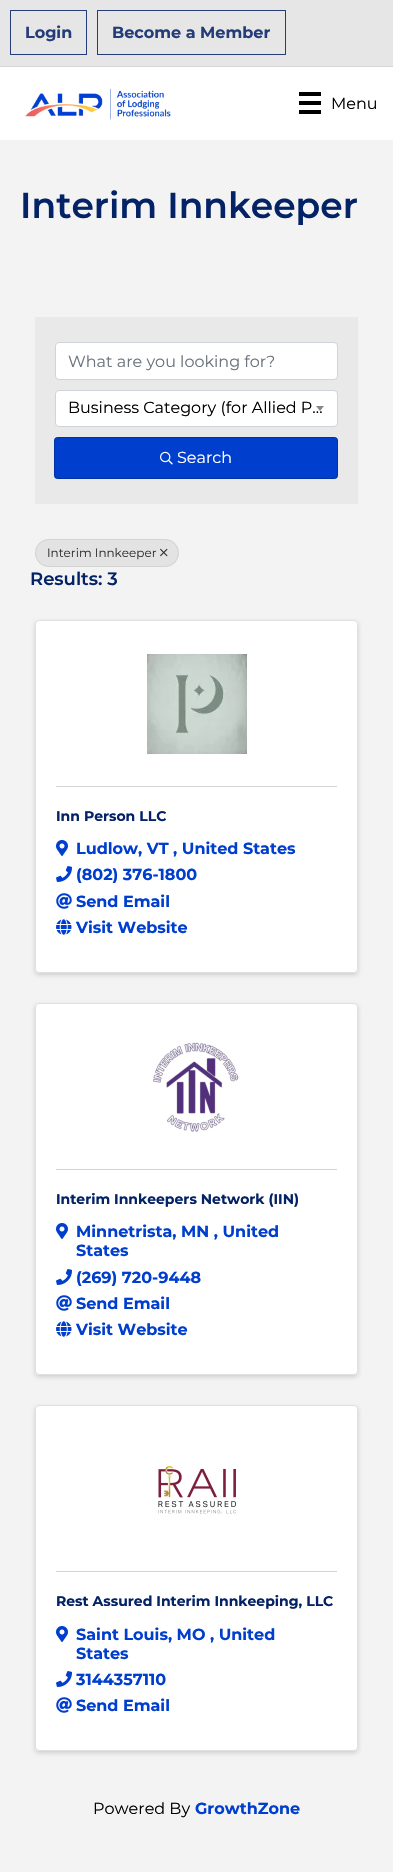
void draw(SkCanvas* canvas) {
    SkPaint paint;
    paint.setAntiAlias(true);
    auto face = [&](const char* family, int weight, float size, bool italic = false) {
        SkFontStyle style(weight, SkFontStyle::kNormal_Width,
            italic ? SkFontStyle::kItalic_Slant : SkFontStyle::kUpright_Slant);
        SkFont result(fontMgr->matchFamilyStyle(family, style), size);
        result.setSubpixel(true);
        return result;
    };
    auto write = [&](const char* s, float x, float y, const SkFont& font, SkColor color) {
        SkPaint ink(SkColor4f::FromColor(color));
        ink.setAntiAlias(true);
        canvas->drawString(s, x, y, font, ink);
    };
    auto block = [&](float x, float y, float w, float h, SkColor color) {
        SkPaint ink(SkColor4f::FromColor(color));
        ink.setAntiAlias(true);
        canvas->drawRect(SkRect::MakeXYWH(x, y, w, h), ink);
    };
    auto card = [&](float x, float y, float w, float h, float radius, SkColor color) {
        SkPaint ink(SkColor4f::FromColor(color));
        ink.setAntiAlias(true);
        canvas->drawRoundRect(SkRect::MakeXYWH(x, y, w, h), radius, radius, ink);
    };
    auto paste = [&](const char* path, float x, float y, float w, float h) {
        auto image = SkImages::DeferredFromEncodedData(SkData::MakeFromFileName(path));
        canvas->drawImageRect(image, SkRect::MakeXYWH(x, y, w, h), SkSamplingOptions());
    };
    canvas->clear(SK_ColorWHITE);
    block(0, 0, 393, 66, SkColorSetRGB(230, 230, 230));
    block(0, 66, 393, 1, SkColorSetRGB(212, 212, 212));
    paint.setStyle(SkPaint::kStroke_Style);
    paint.setStrokeWidth(1);
    paint.setColor(SkColorSetRGB(36, 61, 120));
    canvas->drawRect(SkRect::MakeXYWH(10.5f, 10.5f, 76, 44), paint);
    auto kFont1 = face("Montserrat", 700, 16);
    write("Login", 25, 38, kFont1, SkColorSetRGB(36, 61, 120));
    canvas->drawRect(SkRect::MakeXYWH(97.5f, 10.5f, 188, 44), paint);
    write("Become a Member", 112, 38, kFont1, SkColorSetRGB(36, 61, 120));
    paste("pic1.png", 25, 88, 146, 32);
    block(299, 92, 22, 4, SK_ColorBLACK);
    block(299, 101, 22, 4, SK_ColorBLACK);
    block(299, 110, 22, 4, SK_ColorBLACK);
    auto kFont2 = face("Montserrat", 400, 16);
    write("Menu", 331, 109, kFont2, SK_ColorBLACK);
    block(0, 140, 393, 1732, SkColorSetRGB(243, 243, 243));
    auto kFont3 = face("Montserrat", 600, 36);
    write("Interim Innkeeper", 20, 218, kFont3, SkColorSetRGB(4, 34, 102));
    block(35, 317, 323, 187, SkColorSetRGB(233, 233, 233));
    paint.setStyle(SkPaint::kFill_Style);
    paint.setColor(SK_ColorWHITE);
    canvas->drawRoundRect(SkRect::MakeXYWH(55.5f, 342.5f, 282, 37), 3.5f, 3.5f, paint);
    paint.setStyle(SkPaint::kStroke_Style);
    paint.setColor(SkColorSetRGB(206, 212, 218));
    canvas->drawRoundRect(SkRect::MakeXYWH(55.5f, 342.5f, 282, 37), 3.5f, 3.5f, paint);
    write("What are you looking for?", 68, 367, kFont2, SkColorSetRGB(108, 117, 125));
    paint.setStyle(SkPaint::kFill_Style);
    paint.setColor(SK_ColorWHITE);
    canvas->drawRoundRect(SkRect::MakeXYWH(55.5f, 390.5f, 282, 36), 3.5f, 3.5f, paint);
    paint.setStyle(SkPaint::kStroke_Style);
    paint.setColor(SkColorSetRGB(206, 212, 218));
    canvas->drawRoundRect(SkRect::MakeXYWH(55.5f, 390.5f, 282, 36), 3.5f, 3.5f, paint);
    write("Business Category (for Allied P…", 68, 413, kFont2, SK_ColorBLACK);
    paint.setStyle(SkPaint::kFill_Style);
    paint.setColor(SkColorSetRGB(136, 136, 136));
    canvas->drawPath(SkPathBuilder().moveTo(316, 406).lineTo(324, 406).lineTo(320, 411).close().detach(), paint);
    card(54, 437, 284, 42, 4, SkColorSetRGB(0, 62, 205));
    paint.setStyle(SkPaint::kStroke_Style);
    paint.setColor(SkColorSetARGB(51, 0, 0, 0));
    canvas->drawRoundRect(SkRect::MakeXYWH(54.5f, 437.5f, 283, 41), 3.5f, 3.5f, paint);
    paste("pic2.png", 160, 451, 13, 14);
    write("Search", 177, 463, kFont2, SK_ColorWHITE);
    card(35, 539, 144, 28, 14, SkColorSetRGB(227, 227, 227));
    paint.setColor(SkColorSetARGB(18, 0, 0, 0));
    canvas->drawRoundRect(SkRect::MakeXYWH(35.5f, 539.5f, 143, 27), 13.5f, 13.5f, paint);
    auto kFont4 = face("Montserrat", 400, 12);
    write("Interim Innkeeper", 47, 557, kFont4, SkColorSetRGB(51, 51, 51));
    paste("pic3.png", 160, 548, 8, 9);
    auto kFont5 = face("Montserrat", 600, 18);
    write("Results: 3", 30, 585, kFont5, SkColorSetRGB(4, 34, 102));
    paint.setStyle(SkPaint::kFill_Style);
    paint.setColor(SkColorSetARGB(38, 0, 0, 0));
    paint.setMaskFilter(SkMaskFilter::MakeBlur(kNormal_SkBlurStyle, 2));
    canvas->drawRoundRect(SkRect::MakeXYWH(35, 622, 323, 353), 4, 4, paint);
    paint.setMaskFilter(nullptr);
    card(35, 620, 323, 353, 4, SK_ColorWHITE);
    paint.setStyle(SkPaint::kStroke_Style);
    paint.setColor(SkColorSetARGB(31, 0, 0, 0));
    canvas->drawRoundRect(SkRect::MakeXYWH(35.5f, 620.5f, 322, 352), 3.5f, 3.5f, paint);
    paste("pic4.png", 147, 654, 100, 100);
    block(56, 786, 281, 1, SkColorSetRGB(212, 212, 212));
    auto kFont6 = face("Montserrat", 700, 14);
    write("Inn Person LLC", 56, 821, kFont6, SkColorSetRGB(4, 34, 102));
    paste("pic5.png", 56, 840, 12, 16);
    write("Ludlow, VT , United States", 76, 854, kFont1, SkColorSetRGB(0, 62, 205));
    paste("pic6.png", 56, 866, 16, 16);
    write("(802) 376-1800", 76, 880, kFont1, SkColorSetRGB(0, 62, 205));
    paste("pic7.png", 56, 893, 16, 16);
    write("Send Email", 76, 907, kFont1, SkColorSetRGB(0, 62, 205));
    paste("pic8.png", 56, 919, 16, 16);
    write("Visit Website", 76, 933, kFont1, SkColorSetRGB(0, 62, 205));
    paint.setStyle(SkPaint::kFill_Style);
    paint.setColor(SkColorSetARGB(38, 0, 0, 0));
    paint.setMaskFilter(SkMaskFilter::MakeBlur(kNormal_SkBlurStyle, 2));
    canvas->drawRoundRect(SkRect::MakeXYWH(35, 1005, 323, 372), 4, 4, paint);
    paint.setMaskFilter(nullptr);
    card(35, 1003, 323, 372, 4, SK_ColorWHITE);
    paint.setStyle(SkPaint::kStroke_Style);
    paint.setColor(SkColorSetARGB(31, 0, 0, 0));
    canvas->drawRoundRect(SkRect::MakeXYWH(35.5f, 1003.5f, 322, 371), 3.5f, 3.5f, paint);
    paste("pic9.png", 152, 1042, 87, 90);
    block(56, 1169, 281, 1, SkColorSetRGB(212, 212, 212));
    write("Interim Innkeepers Network (IIN)", 56, 1204, kFont6, SkColorSetRGB(4, 34, 102));
    paste("pic5.png", 56, 1223, 12, 16);
    write("Minnetrista, MN , United", 76, 1237, kFont1, SkColorSetRGB(0, 62, 205));
    write("States", 76, 1256, kFont1, SkColorSetRGB(0, 62, 205));
    paste("pic6.png", 56, 1269, 16, 16);
    write("(269) 720-9448", 76, 1283, kFont1, SkColorSetRGB(0, 62, 205));
    paste("pic7.png", 56, 1295, 16, 16);
    write("Send Email", 76, 1309, kFont1, SkColorSetRGB(0, 62, 205));
    paste("pic8.png", 56, 1321, 16, 16);
    write("Visit Website", 76, 1335, kFont1, SkColorSetRGB(0, 62, 205));
    paint.setStyle(SkPaint::kFill_Style);
    paint.setColor(SkColorSetARGB(38, 0, 0, 0));
    paint.setMaskFilter(SkMaskFilter::MakeBlur(kNormal_SkBlurStyle, 2));
    canvas->drawRoundRect(SkRect::MakeXYWH(35, 1407, 323, 346), 4, 4, paint);
    paint.setMaskFilter(nullptr);
    card(35, 1405, 323, 346, 4, SK_ColorWHITE);
    paint.setStyle(SkPaint::kStroke_Style);
    paint.setColor(SkColorSetARGB(31, 0, 0, 0));
    canvas->drawRoundRect(SkRect::MakeXYWH(35.5f, 1405.5f, 322, 345), 3.5f, 3.5f, paint);
    paste("pic10.png", 158, 1466, 78, 48);
    block(56, 1571, 281, 1, SkColorSetRGB(212, 212, 212));
    write("Rest Assured Interim Innkeeping, LLC", 56, 1606, kFont6, SkColorSetRGB(4, 34, 102));
    paste("pic5.png", 56, 1626, 12, 16);
    write("Saint Louis, MO , United", 76, 1640, kFont1, SkColorSetRGB(0, 62, 205));
    write("States", 76, 1659, kFont1, SkColorSetRGB(0, 62, 205));
    paste("pic6.png", 56, 1671, 16, 16);
    write("3144357110", 76, 1685, kFont1, SkColorSetRGB(0, 62, 205));
    paste("pic7.png", 56, 1697, 16, 16);
    write("Send Email", 76, 1711, kFont1, SkColorSetRGB(0, 62, 205));
    write("Powered By", 93, 1814, kFont2, SK_ColorBLACK);
    write("GrowthZone", 195, 1814, kFont1, SkColorSetRGB(0, 62, 205));
}
